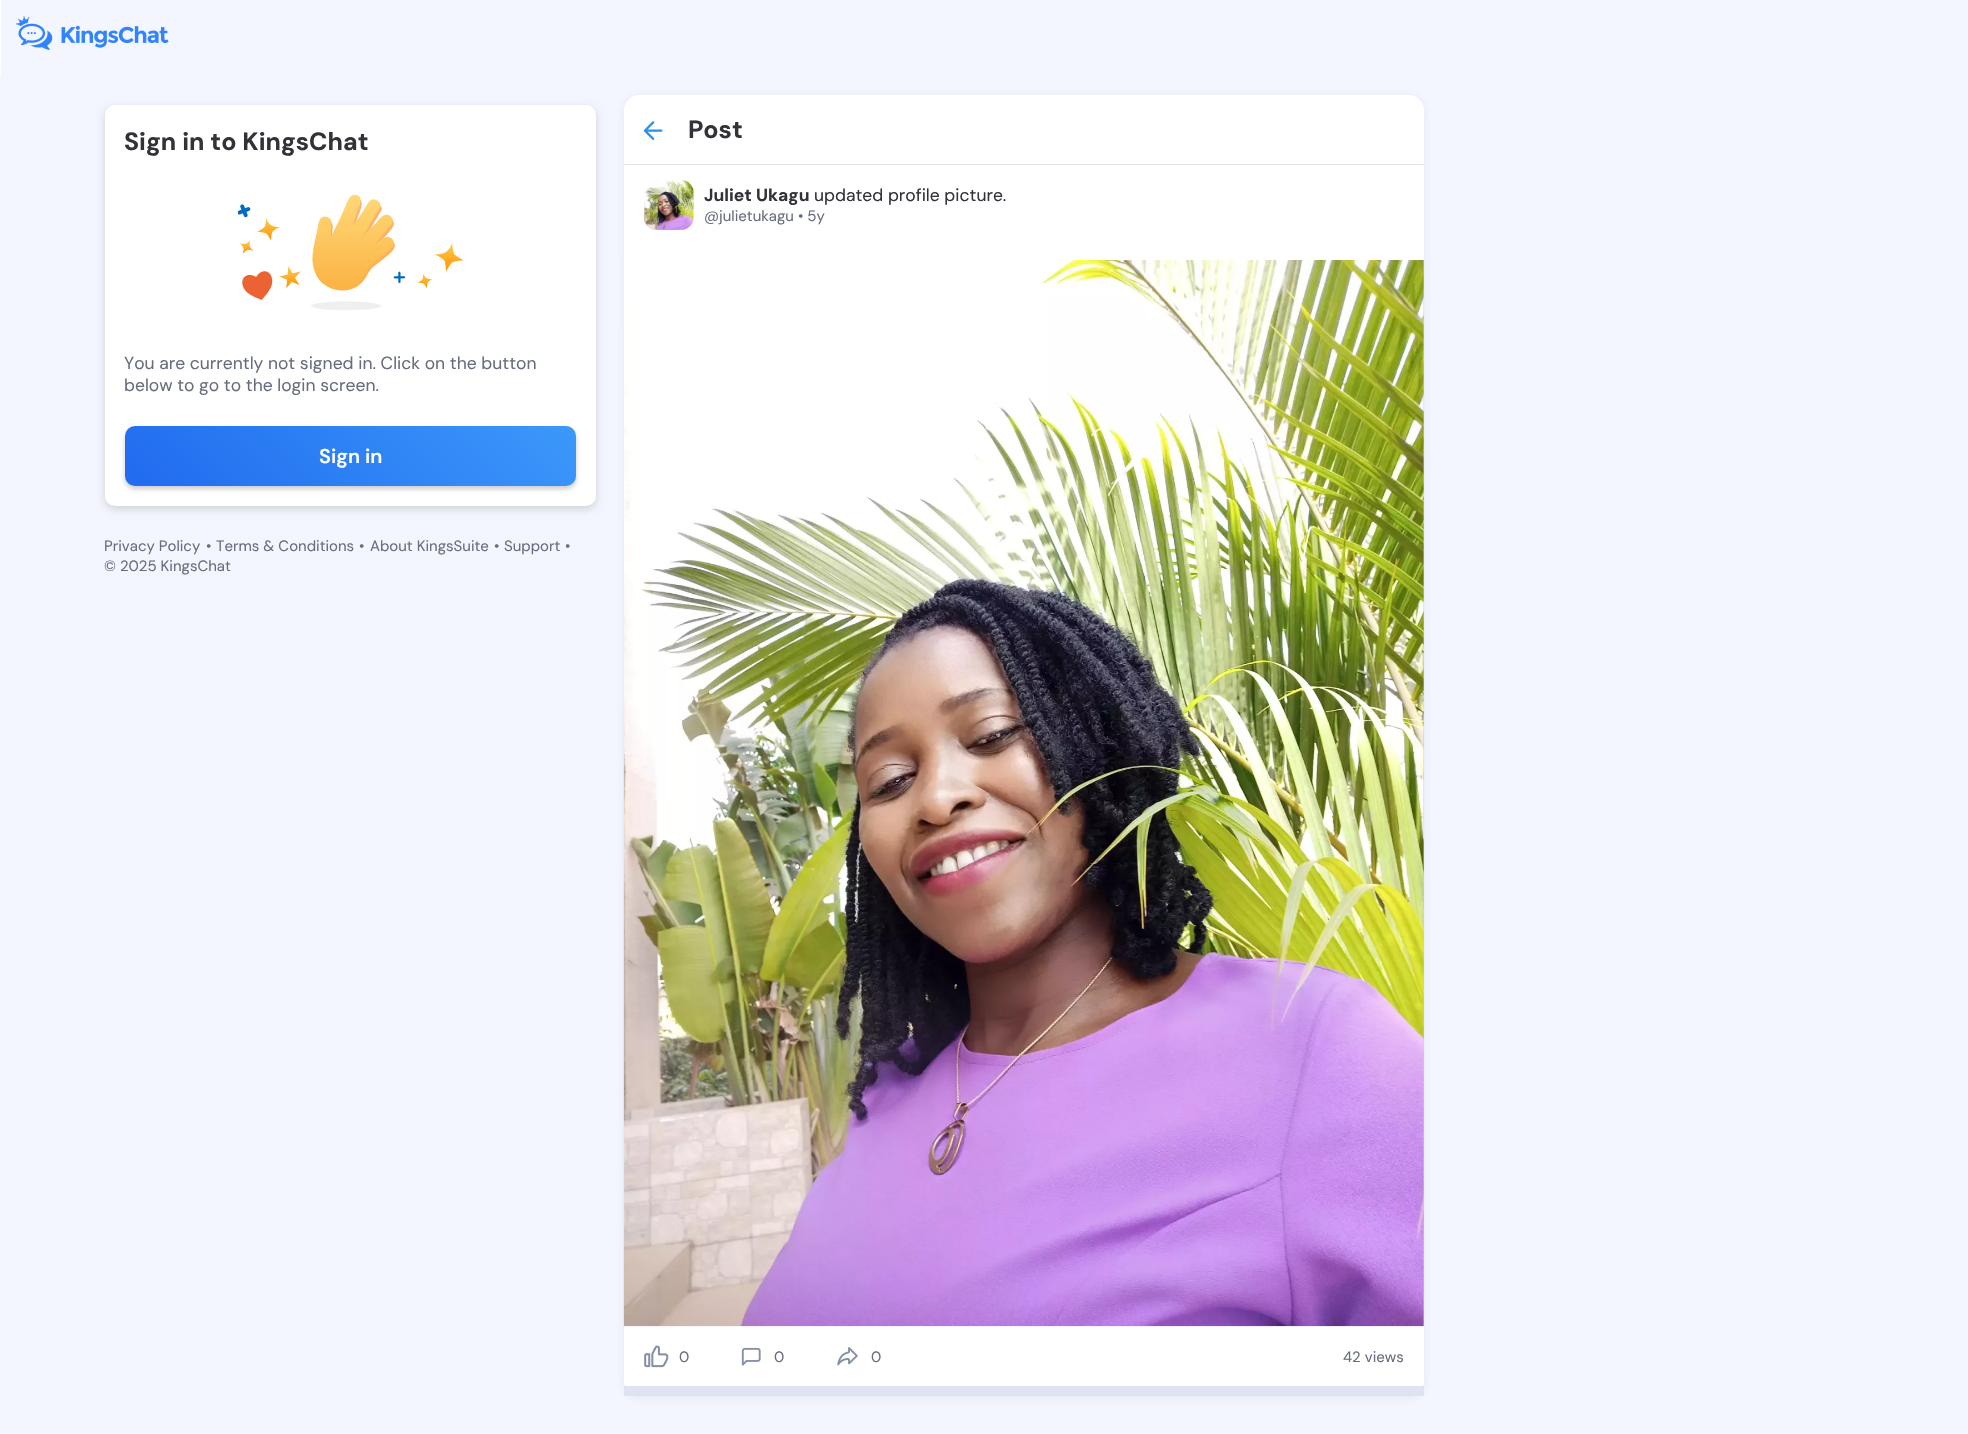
void draw(SkCanvas* canvas) {
    SkPaint paint;
    paint.setAntiAlias(true);
    auto face = [&](const char* family, int weight, float size, bool italic = false) {
        SkFontStyle style(weight, SkFontStyle::kNormal_Width,
            italic ? SkFontStyle::kItalic_Slant : SkFontStyle::kUpright_Slant);
        SkFont result(fontMgr->matchFamilyStyle(family, style), size);
        result.setSubpixel(true);
        return result;
    };
    auto write = [&](const char* s, float x, float y, const SkFont& font, SkColor color) {
        SkPaint ink(SkColor4f::FromColor(color));
        ink.setAntiAlias(true);
        canvas->drawString(s, x, y, font, ink);
    };
    auto block = [&](float x, float y, float w, float h, SkColor color) {
        SkPaint ink(SkColor4f::FromColor(color));
        ink.setAntiAlias(true);
        canvas->drawRect(SkRect::MakeXYWH(x, y, w, h), ink);
    };
    auto card = [&](float x, float y, float w, float h, float radius, SkColor color) {
        SkPaint ink(SkColor4f::FromColor(color));
        ink.setAntiAlias(true);
        canvas->drawRoundRect(SkRect::MakeXYWH(x, y, w, h), radius, radius, ink);
    };
    auto paste = [&](const char* path, float x, float y, float w, float h) {
        auto image = SkImages::DeferredFromEncodedData(SkData::MakeFromFileName(path));
        canvas->drawImageRect(image, SkRect::MakeXYWH(x, y, w, h), SkSamplingOptions());
    };
    canvas->clear(SK_ColorWHITE);
    block(0, 75, 1968, 1359, SkColorSetRGB(243, 246, 254));
    block(1, 0, 1967, 75, SkColorSetRGB(243, 246, 254));
    paste("pic1.png", 16, 16, 153, 34);
    paint.setColor(SkColorSetARGB(38, 0, 0, 0));
    paint.setMaskFilter(SkMaskFilter::MakeBlur(kNormal_SkBlurStyle, 4));
    canvas->drawRoundRect(SkRect::MakeXYWH(105, 108, 491, 401), 10, 10, paint);
    paint.setMaskFilter(nullptr);
    card(105, 105, 491, 401, 10, SK_ColorWHITE);
    auto kFont1 = face("DM Sans", 700, 25);
    write("Sign in to KingsChat", 124, 150, kFont1, SkColorSetRGB(50, 51, 56));
    paste("pic2.png", 238, 194, 226, 117);
    auto kFont2 = face("DM Sans", 400, 17.5f);
    write("You are currently not signed in. Click on the button", 124, 369, kFont2, SkColorSetRGB(103, 109, 126));
    write("below to go to the login screen.", 124, 391, kFont2, SkColorSetRGB(103, 109, 126));
    paint.setColor(SkColorSetARGB(51, 0, 0, 0));
    paint.setMaskFilter(SkMaskFilter::MakeBlur(kNormal_SkBlurStyle, 2.5f));
    canvas->drawRoundRect(SkRect::MakeXYWH(125, 429, 451, 60), 10, 10, paint);
    paint.setMaskFilter(nullptr);
    {
        const SkColor colors[] = {SkColorSetRGB(32, 107, 239), SkColorSetRGB(73, 172, 255)};
        const float stops[] = {0, 1};
        const SkPoint ends[] = {{279, 640}, {648, 272}};
        paint.setShader(SkGradientShader::MakeLinear(ends, colors, stops, 2, SkTileMode::kClamp));
        paint.setAlpha(255);
    }
    canvas->drawRoundRect(SkRect::MakeXYWH(125, 426, 451, 60), 10, 10, paint);
    auto kFont3 = face("DM Sans", 600, 20);
    write("Sign in", 319, 463, kFont3, SK_ColorWHITE);
    auto kFont4 = face("DM Sans", 400, 15);
    write("Privacy Policy", 104, 551, kFont4, SkColorSetRGB(103, 109, 126));
    write("•", 206, 551, kFont4, SkColorSetRGB(103, 109, 126));
    write("Terms & Conditions", 216, 551, kFont4, SkColorSetRGB(103, 109, 126));
    write("•", 359, 551, kFont4, SkColorSetRGB(103, 109, 126));
    write("About KingsSuite", 370, 551, kFont4, SkColorSetRGB(103, 109, 126));
    write("•", 494, 551, kFont4, SkColorSetRGB(103, 109, 126));
    write("Support", 504, 551, kFont4, SkColorSetRGB(103, 109, 126));
    write("•", 565, 551, kFont4, SkColorSetRGB(103, 109, 126));
    write("© 2025 KingsChat", 104, 571, kFont4, SkColorSetRGB(103, 109, 126));
    paint.setShader(nullptr);
    paint.setColor(SkColorSetARGB(20, 57, 61, 70));
    paint.setMaskFilter(SkMaskFilter::MakeBlur(kNormal_SkBlurStyle, 5));
    canvas->drawRoundRect(SkRect::MakeXYWH(624, 96, 800, 1302), 15, 15, paint);
    paint.setMaskFilter(nullptr);
    card(624, 95, 800, 1301, 15, SK_ColorWHITE);
    block(624, 164, 800, 1, SkColorSetRGB(221, 227, 240));
    paste("pic3.png", 644, 121, 19, 19);
    write("Post", 688, 138, kFont1, SkColorSetRGB(50, 51, 56));
    block(624, 1386, 800, 10, SkColorSetRGB(221, 227, 240));
    paste("pic4.png", 643, 180, 51, 50);
    auto kFont5 = face("DM Sans", 700, 17.5f);
    write("Juliet Ukagu", 704, 201, kFont5, SkColorSetRGB(50, 51, 56));
    write("updated profile picture.", 814, 201, kFont2, SkColorSetRGB(50, 51, 56));
    write("@julietukagu • 5y", 704, 221, kFont4, SkColorSetRGB(103, 109, 126));
    paste("pic5.png", 623, 260, 801, 1067);
    paste("pic6.png", 623, 260, 801, 1067);
    paste("pic7.png", 644, 1345, 25, 23);
    write("0", 679, 1362, kFont4, SkColorSetRGB(103, 109, 126));
    paste("pic8.png", 741, 1347, 20, 19);
    write("0", 774, 1362, kFont4, SkColorSetRGB(103, 109, 126));
    paste("pic9.png", 837, 1347, 21, 19);
    write("0", 871, 1362, kFont4, SkColorSetRGB(103, 109, 126));
    write("42 views", 1343, 1362, kFont4, SkColorSetRGB(103, 109, 126));
}
